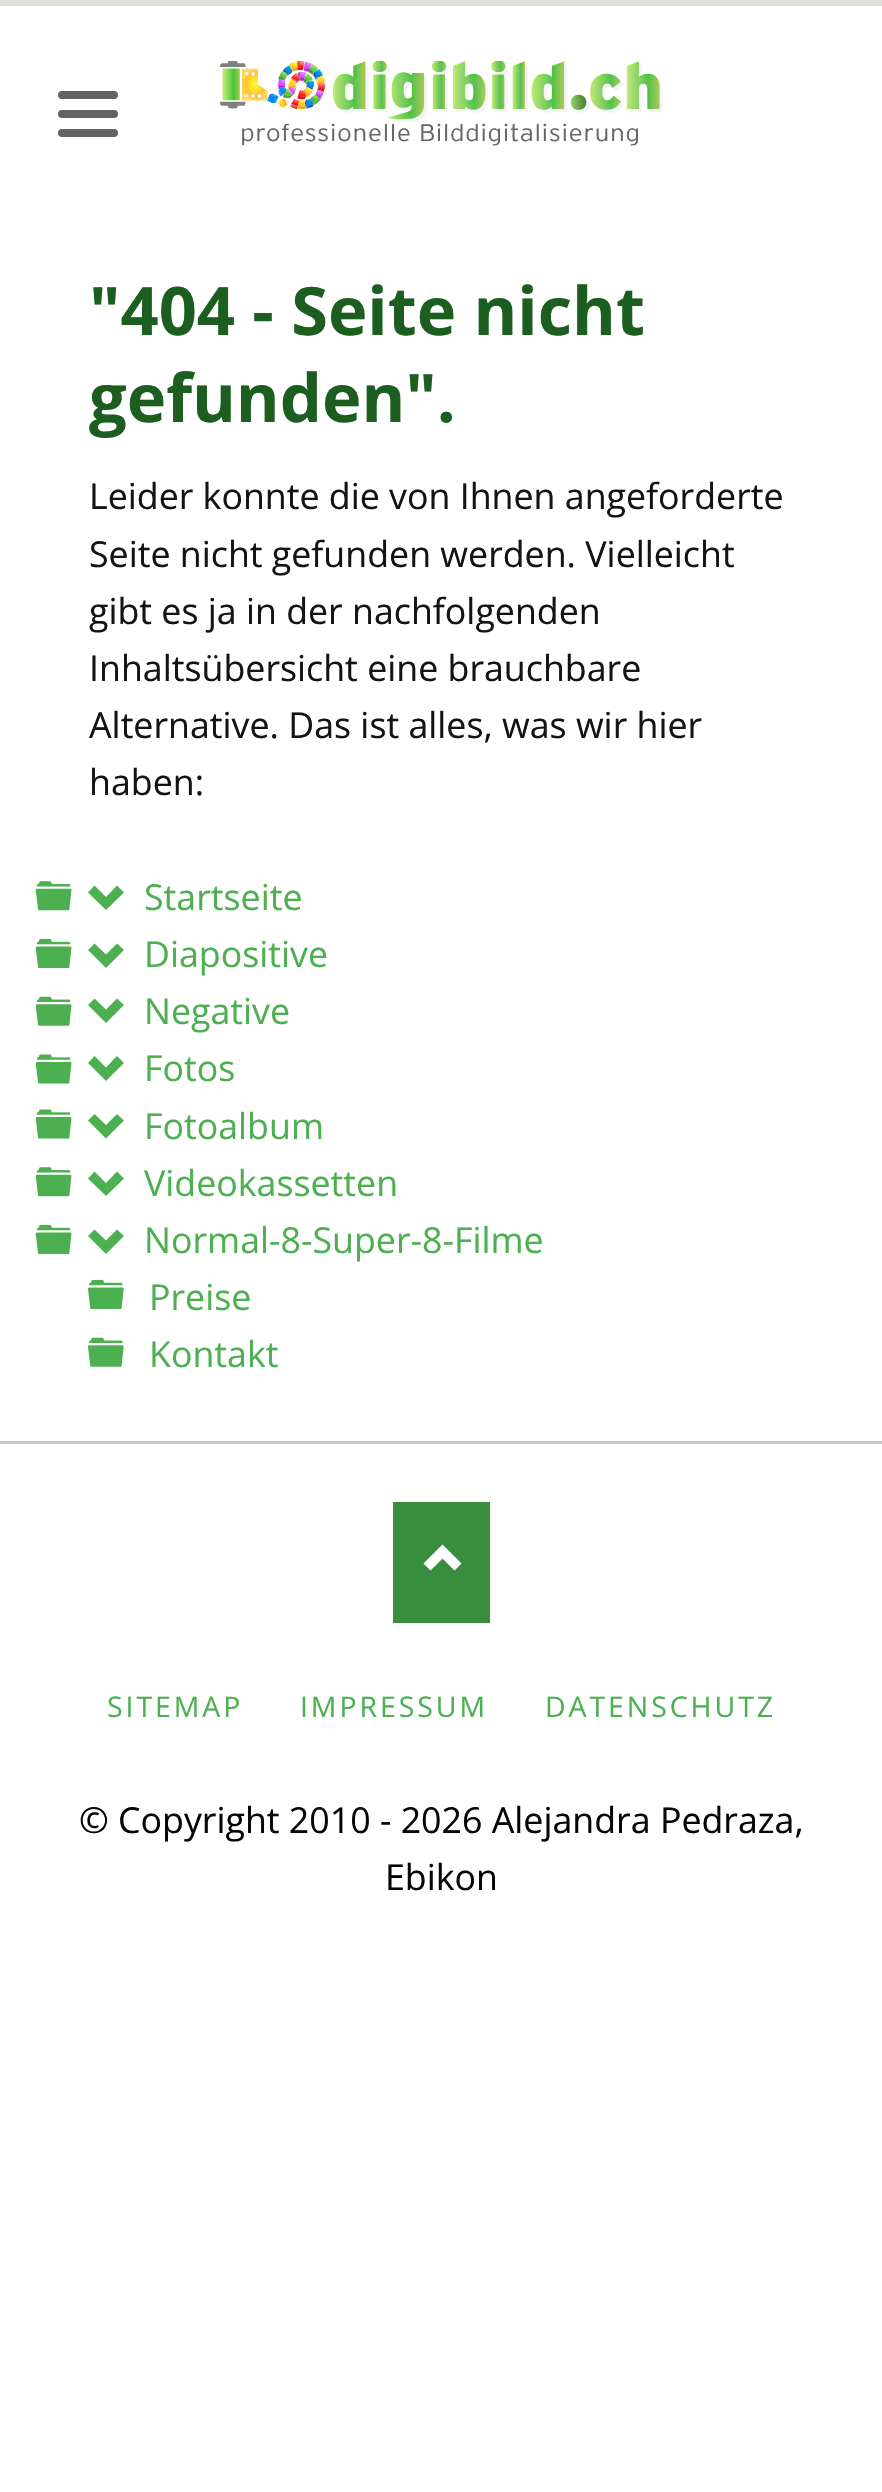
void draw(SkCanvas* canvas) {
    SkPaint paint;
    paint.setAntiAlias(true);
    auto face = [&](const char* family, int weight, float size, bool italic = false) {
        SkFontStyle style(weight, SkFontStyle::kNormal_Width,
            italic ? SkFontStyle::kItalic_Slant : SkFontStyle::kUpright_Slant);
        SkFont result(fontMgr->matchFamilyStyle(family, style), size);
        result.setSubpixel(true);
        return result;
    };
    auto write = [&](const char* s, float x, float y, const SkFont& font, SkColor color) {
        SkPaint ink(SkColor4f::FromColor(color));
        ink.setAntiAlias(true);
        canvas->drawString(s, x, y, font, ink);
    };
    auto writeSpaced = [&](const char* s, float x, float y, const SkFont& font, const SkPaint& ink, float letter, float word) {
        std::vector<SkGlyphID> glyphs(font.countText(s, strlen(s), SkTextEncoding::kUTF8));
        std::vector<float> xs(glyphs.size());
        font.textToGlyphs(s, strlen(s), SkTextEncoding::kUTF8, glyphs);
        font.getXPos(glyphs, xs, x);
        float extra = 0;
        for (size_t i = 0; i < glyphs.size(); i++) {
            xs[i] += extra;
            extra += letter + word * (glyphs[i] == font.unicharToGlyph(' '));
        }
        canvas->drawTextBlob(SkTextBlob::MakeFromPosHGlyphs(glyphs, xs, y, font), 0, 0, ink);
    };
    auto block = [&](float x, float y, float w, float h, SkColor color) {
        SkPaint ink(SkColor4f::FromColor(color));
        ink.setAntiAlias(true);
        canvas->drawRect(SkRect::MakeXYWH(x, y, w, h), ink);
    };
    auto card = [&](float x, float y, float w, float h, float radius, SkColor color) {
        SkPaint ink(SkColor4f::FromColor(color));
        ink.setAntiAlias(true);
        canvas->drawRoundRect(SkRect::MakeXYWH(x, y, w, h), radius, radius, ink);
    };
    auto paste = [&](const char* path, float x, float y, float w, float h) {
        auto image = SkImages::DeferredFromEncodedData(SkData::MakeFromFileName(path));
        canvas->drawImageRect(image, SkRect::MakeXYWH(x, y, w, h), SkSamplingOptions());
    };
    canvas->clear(SK_ColorWHITE);
    card(58, 129, 60, 8, 4, SkColorSetRGB(99, 99, 99));
    card(58, 110, 60, 8, 4, SkColorSetRGB(99, 99, 99));
    card(58, 91, 60, 8, 4, SkColorSetRGB(99, 99, 99));
    block(0, 0, 882, 6, SkColorSetRGB(222, 224, 218));
    paste("pic1.png", 220, 61, 443, 85);
    auto kFont1 = face("Open Sans", 700, 66.75f);
    write("\"404 - Seite nicht", 89, 335, kFont1, SkColorSetRGB(27, 94, 32));
    write("gefunden\".", 89, 422, kFont1, SkColorSetRGB(27, 94, 32));
    auto kFont2 = face("Open Sans", 400, 35.75f);
    write("Leider konnte die von Ihnen angeforderte", 89, 509, kFont2, SkColorSetRGB(18, 19, 20));
    write("Seite nicht gefunden werden. Vielleicht", 89, 567, kFont2, SkColorSetRGB(18, 19, 20));
    write("gibt es ja in der nachfolgenden", 89, 624, kFont2, SkColorSetRGB(18, 19, 20));
    write("Inhaltsübersicht eine brauchbare", 89, 681, kFont2, SkColorSetRGB(18, 19, 20));
    write("Alternative. Das ist alles, was wir hier", 89, 738, kFont2, SkColorSetRGB(18, 19, 20));
    write("haben:", 89, 795, kFont2, SkColorSetRGB(18, 19, 20));
    paste("pic2.png", 35, 881, 37, 30);
    paint.setColor(SkColorSetRGB(76, 175, 80));
    canvas->drawPath(SkPathBuilder().moveTo(124, 892.5f).lineTo(117, 885.5f).lineTo(106, 897).lineTo(94.5f, 885.5f).lineTo(88, 892.5f).lineTo(106, 910).close().detach(), paint);
    write("Startseite", 144, 910, kFont2, SkColorSetRGB(76, 175, 80));
    paste("pic3.png", 35, 938, 37, 30);
    canvas->drawPath(SkPathBuilder().moveTo(124, 950).lineTo(117, 943.5f).lineTo(106, 954.5f).lineTo(94.5f, 943.5f).lineTo(88, 950).lineTo(106, 968).close().detach(), paint);
    write("Diapositive", 144, 967, kFont2, SkColorSetRGB(76, 175, 80));
    paste("pic4.png", 35, 996, 37, 30);
    canvas->drawPath(SkPathBuilder().moveTo(124, 1005).lineTo(117, 998.5f).lineTo(106, 1009.5f).lineTo(94.5f, 998.5f).lineTo(88, 1005).lineTo(106, 1023).close().detach(), paint);
    write("Negative", 144, 1024, kFont2, SkColorSetRGB(76, 175, 80));
    paste("pic5.png", 35, 1054, 37, 30);
    canvas->drawPath(SkPathBuilder().moveTo(124, 1063).lineTo(117, 1056).lineTo(106, 1067.5f).lineTo(94.5f, 1056).lineTo(88, 1063).lineTo(106, 1081).close().detach(), paint);
    write("Fotos", 144, 1081, kFont2, SkColorSetRGB(76, 175, 80));
    paste("pic5.png", 35, 1109, 37, 30);
    canvas->drawPath(SkPathBuilder().moveTo(124, 1120.5f).lineTo(117, 1114).lineTo(106, 1125).lineTo(94.5f, 1114).lineTo(88, 1120.5f).lineTo(106, 1138.5f).close().detach(), paint);
    write("Fotoalbum", 144, 1139, kFont2, SkColorSetRGB(76, 175, 80));
    paste("pic2.png", 35, 1167, 37, 30);
    canvas->drawPath(SkPathBuilder().moveTo(124, 1178.5f).lineTo(117, 1171.5f).lineTo(106, 1183).lineTo(94.5f, 1171.5f).lineTo(88, 1178.5f).lineTo(106, 1196).close().detach(), paint);
    write("Videokassetten", 144, 1196, kFont2, SkColorSetRGB(76, 175, 80));
    paste("pic3.png", 35, 1224, 37, 30);
    canvas->drawPath(SkPathBuilder().moveTo(124, 1236).lineTo(117, 1229.5f).lineTo(106, 1240.5f).lineTo(94.5f, 1229.5f).lineTo(88, 1236).lineTo(106, 1254).close().detach(), paint);
    write("Normal-8-Super-8-Filme", 144, 1253, kFont2, SkColorSetRGB(76, 175, 80));
    paste("pic6.png", 88, 1279, 36, 30);
    write("Preise", 149, 1310, kFont2, SkColorSetRGB(76, 175, 80));
    paste("pic7.png", 88, 1337, 36, 30);
    write("Kontakt", 149, 1367, kFont2, SkColorSetRGB(76, 175, 80));
    block(0, 1441, 882, 3, SkColorSetRGB(201, 202, 200));
    block(393, 1502, 97, 121, SkColorSetRGB(56, 142, 60));
    paint.setColor(SK_ColorWHITE);
    canvas->drawPath(SkPathBuilder().moveTo(423.5f, 1563.5f).lineTo(430.5f, 1570.5f).lineTo(442.5f, 1558.5f).lineTo(454.5f, 1570.5f).lineTo(461.5f, 1563.5f).lineTo(442.5f, 1544.5f).close().detach(), paint);
    auto kFont3 = face("Open Sans", 400, 28.5f);
    paint.setColor(SkColorSetRGB(76, 175, 80));
    writeSpaced("SITEMAP", 107, 1717, kFont3, paint, 2.9f, 0);
    writeSpaced("IMPRESSUM", 300, 1717, kFont3, paint, 2.9f, 0);
    writeSpaced("DATENSCHUTZ", 545, 1717, kFont3, paint, 2.9f, 0);
    write("© Copyright 2010 - 2026 Alejandra Pedraza,", 79, 1833, kFont2, SkColorSetRGB(5, 5, 5));
    write("Ebikon", 385, 1890, kFont2, SkColorSetRGB(5, 5, 5));
}
